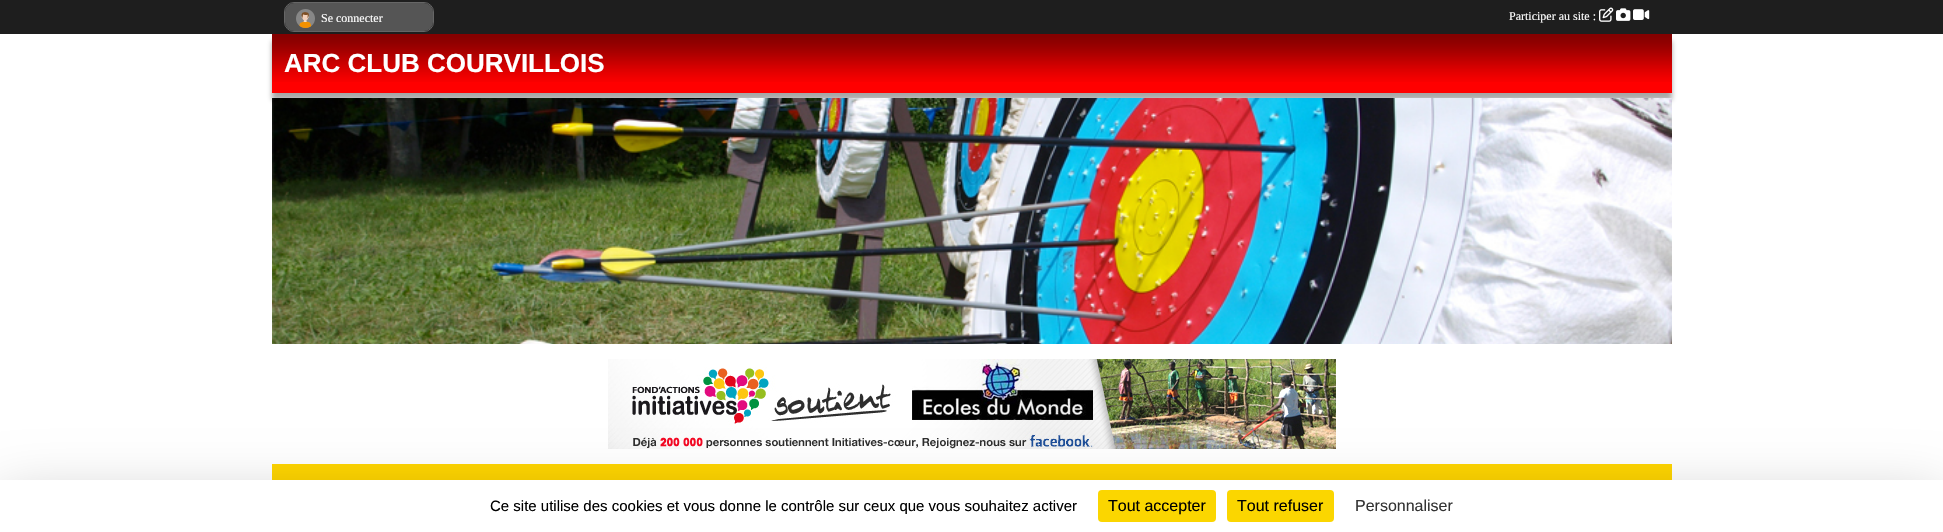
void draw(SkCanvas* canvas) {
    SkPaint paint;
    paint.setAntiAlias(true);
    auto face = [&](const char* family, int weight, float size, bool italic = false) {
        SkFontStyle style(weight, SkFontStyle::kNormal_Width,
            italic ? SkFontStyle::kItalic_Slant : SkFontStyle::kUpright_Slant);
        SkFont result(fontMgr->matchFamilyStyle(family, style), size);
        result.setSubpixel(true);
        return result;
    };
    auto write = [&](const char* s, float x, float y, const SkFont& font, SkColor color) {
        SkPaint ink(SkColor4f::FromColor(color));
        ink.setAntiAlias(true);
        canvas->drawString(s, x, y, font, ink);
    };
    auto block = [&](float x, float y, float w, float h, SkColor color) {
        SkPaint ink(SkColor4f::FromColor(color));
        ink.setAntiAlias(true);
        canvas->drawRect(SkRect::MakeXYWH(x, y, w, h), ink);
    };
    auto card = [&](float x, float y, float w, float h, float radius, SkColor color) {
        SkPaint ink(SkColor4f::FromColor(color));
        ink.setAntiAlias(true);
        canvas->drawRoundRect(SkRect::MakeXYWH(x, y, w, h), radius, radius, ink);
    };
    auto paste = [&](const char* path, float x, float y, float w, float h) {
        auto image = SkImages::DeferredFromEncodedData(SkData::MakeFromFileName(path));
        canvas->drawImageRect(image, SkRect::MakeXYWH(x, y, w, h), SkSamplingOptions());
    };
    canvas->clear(SK_ColorWHITE);
    paint.setColor(SkColorSetARGB(128, 80, 80, 80));
    paint.setMaskFilter(SkMaskFilter::MakeBlur(kNormal_SkBlurStyle, 2.5f));
    canvas->drawRect(SkRect::MakeXYWH(272, 41, 1400, 59), paint);
    paint.setMaskFilter(nullptr);
    block(0, 0, 1943, 34, SkColorSetRGB(30, 30, 30));
    paint.setStyle(SkPaint::kStroke_Style);
    paint.setStrokeWidth(1);
    paint.setColor(SkColorSetRGB(102, 102, 102));
    canvas->drawRoundRect(SkRect::MakeXYWH(284.5f, 2.5f, 149, 29), 9.5f, 9.5f, paint);
    card(285, 3, 148, 28, 9, SkColorSetRGB(85, 85, 85));
    paste("pic1.png", 296, 9, 19, 19);
    auto kFont1 = face("Liberation Serif", 400, 12);
    write("Se connecter", 321, 22, kFont1, SK_ColorWHITE);
    write("Participer au site :", 1509, 20, kFont1, SK_ColorWHITE);
    paste("pic2.png", 1599, 7, 15, 15);
    paste("pic3.png", 1616, 8, 15, 13);
    paste("pic4.png", 1633, 9, 17, 11);
    block(272, 34, 1400, 59, SkColorSetRGB(255, 0, 0));
    paste("pic5.png", 272, 34, 1400, 48);
    auto kFont2 = face("Liberation Sans", 700, 26);
    write("ARC CLUB COURVILLOIS", 284, 72, kFont2, SK_ColorWHITE);
    paste("pic6.png", 272, 98, 1400, 246);
    paste("pic7.png", 608, 359, 728, 90);
    block(272, 464, 1400, 16, SkColorSetRGB(255, 213, 0));
    paint.setStyle(SkPaint::kFill_Style);
    paint.setColor(SkColorSetARGB(64, 0, 0, 0));
    paint.setMaskFilter(SkMaskFilter::MakeBlur(kNormal_SkBlurStyle, 30));
    canvas->drawRect(SkRect::MakeXYWH(0, 500, 1943, 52), paint);
    paint.setMaskFilter(nullptr);
    block(0, 480, 1943, 52, SK_ColorWHITE);
    auto kFont3 = face("Liberation Sans", 400, 15);
    write("Ce site utilise des cookies et vous donne le contrôle sur ceux que vous souhaitez activer", 490, 511, kFont3, SK_ColorBLACK);
    card(1098, 490, 118, 32, 4, SkColorSetRGB(251, 214, 0));
    auto kFont4 = face("Liberation Sans", 400, 16);
    write("Tout accepter", 1108, 511, kFont4, SK_ColorBLACK);
    card(1227, 490, 107, 32, 4, SkColorSetRGB(251, 214, 0));
    write("Tout refuser", 1237, 511, kFont4, SK_ColorBLACK);
    write("Personnaliser", 1355, 511, kFont4, SkColorSetRGB(51, 51, 51));
}
